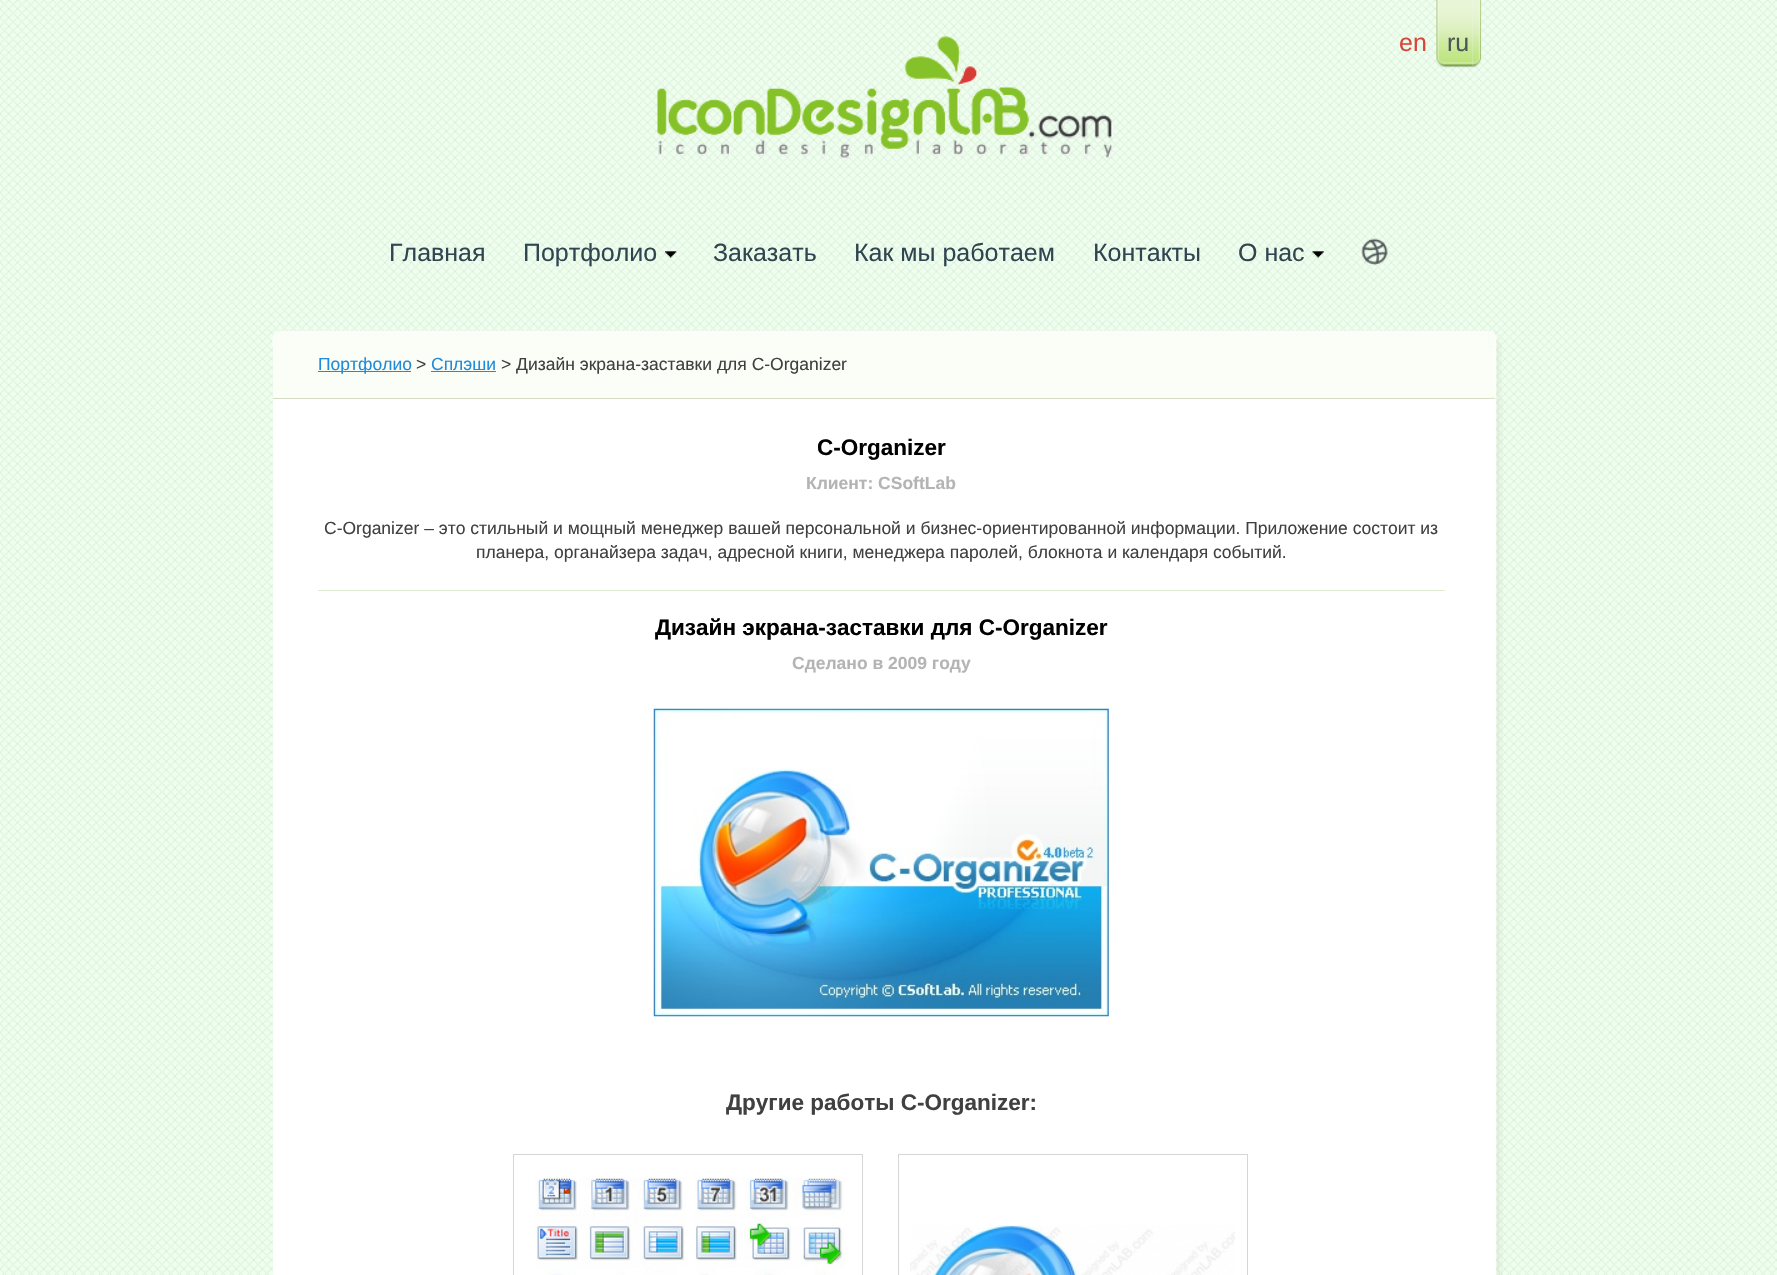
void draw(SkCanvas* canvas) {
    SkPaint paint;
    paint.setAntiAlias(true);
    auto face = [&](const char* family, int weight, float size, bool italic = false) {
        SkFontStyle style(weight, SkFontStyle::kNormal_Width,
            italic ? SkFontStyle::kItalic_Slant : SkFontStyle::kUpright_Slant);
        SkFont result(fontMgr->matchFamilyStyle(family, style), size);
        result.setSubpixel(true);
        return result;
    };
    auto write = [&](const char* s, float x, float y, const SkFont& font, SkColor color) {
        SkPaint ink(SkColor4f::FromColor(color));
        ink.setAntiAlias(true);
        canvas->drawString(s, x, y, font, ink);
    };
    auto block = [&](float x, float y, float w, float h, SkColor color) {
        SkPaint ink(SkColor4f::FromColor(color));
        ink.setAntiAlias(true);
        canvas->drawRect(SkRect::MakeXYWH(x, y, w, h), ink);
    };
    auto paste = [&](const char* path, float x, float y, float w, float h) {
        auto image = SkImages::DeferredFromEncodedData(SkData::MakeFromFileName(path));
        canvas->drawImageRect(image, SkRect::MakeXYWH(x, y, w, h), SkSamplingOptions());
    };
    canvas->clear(SK_ColorWHITE);
    paste("pic1.png", 0, 0, 1777, 1275);
    paste("pic2.png", 657, 36, 456, 123);
    auto kFont1 = face("Liberation Sans", 400, 25);
    write("en", 1399, 51, kFont1, SkColorSetRGB(216, 69, 58));
    paste("pic3.png", 1436, 0, 9, 68);
    paste("pic4.png", 1445, 0, 28, 68);
    write("ru", 1447, 51, kFont1, SkColorSetRGB(78, 85, 89));
    paste("pic5.png", 1472, 0, 10, 68);
    write("Главная", 389, 261, kFont1, SkColorSetRGB(49, 69, 81));
    write("Портфолио", 523, 261, kFont1, SkColorSetRGB(49, 69, 81));
    paste("pic6.png", 665, 251, 12, 7);
    write("Заказать", 713, 261, kFont1, SkColorSetRGB(49, 69, 81));
    write("Как мы работаем", 854, 261, kFont1, SkColorSetRGB(49, 69, 81));
    write("Контакты", 1093, 261, kFont1, SkColorSetRGB(49, 69, 81));
    write("О нас", 1238, 261, kFont1, SkColorSetRGB(49, 69, 81));
    paste("pic7.png", 1312, 251, 12, 7);
    paste("pic8.png", 1361, 238, 28, 28);
    paste("pic9.png", 272, 331, 8, 16);
    paste("pic10.png", 280, 331, 1209, 15);
    paste("pic11.png", 1489, 331, 13, 16);
    block(273, 346, 1216, 52, SkColorSetRGB(251, 253, 247));
    paste("pic12.png", 1489, 346, 13, 52);
    block(318, 371, 93, 1, SkColorSetRGB(33, 138, 217));
    auto kFont2 = face("Liberation Sans", 400, 17.5f);
    write("Портфолио", 318, 370, kFont2, SkColorSetRGB(33, 138, 217));
    write(">", 416, 370, kFont2, SkColorSetRGB(64, 64, 64));
    write("Сплэши", 431, 370, kFont2, SkColorSetRGB(33, 138, 217));
    block(431, 371, 65, 1, SkColorSetRGB(33, 138, 217));
    write("> Дизайн экрана-заставки для С-Organizer", 501, 370, kFont2, SkColorSetRGB(64, 64, 64));
    block(273, 398, 1216, 1, SkColorSetRGB(211, 220, 197));
    paste("pic14.png", 1489, 398, 14, 877);
    paste("pic13.png", 1489, 398, 12, 1);
    block(273, 399, 1216, 876, SK_ColorWHITE);
    auto kFont3 = face("Liberation Sans", 700, 22.5f);
    write("С-Organizer", 817, 455, kFont3, SK_ColorBLACK);
    auto kFont4 = face("Liberation Sans", 700, 17.5f);
    write("Клиент: CSoftLab", 806, 489, kFont4, SkColorSetRGB(180, 180, 180));
    write("C-Organizer – это стильный и мощный менеджер вашей персональной и бизнес-ориентированной информации. Приложение состоит из", 324, 534, kFont2, SkColorSetRGB(64, 64, 64));
    write("планера, органайзера задач, адресной книги, менеджера паролей, блокнота и календаря событий.", 476, 558, kFont2, SkColorSetRGB(64, 64, 64));
    block(318, 590, 1127, 1, SkColorSetRGB(223, 236, 211));
    write("Дизайн экрана-заставки для С-Organizer", 655, 635, kFont3, SK_ColorBLACK);
    write("Сделано в 2009 году", 792, 669, kFont4, SkColorSetRGB(180, 180, 180));
    paste("pic15.png", 653, 708, 456, 309);
    write("Другие работы С-Organizer:", 726, 1110, kFont3, SkColorSetRGB(64, 64, 64));
    paint.setStyle(SkPaint::kStroke_Style);
    paint.setStrokeWidth(1);
    paint.setColor(SkColorSetRGB(213, 213, 211));
    canvas->drawRect(SkRect::MakeXYWH(513.5f, 1154.5f, 349, 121), paint);
    paste("pic16.png", 535, 1177, 310, 98);
    canvas->drawRect(SkRect::MakeXYWH(898.5f, 1154.5f, 349, 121), paint);
    paste("pic17.png", 910, 1225, 325, 50);
}
